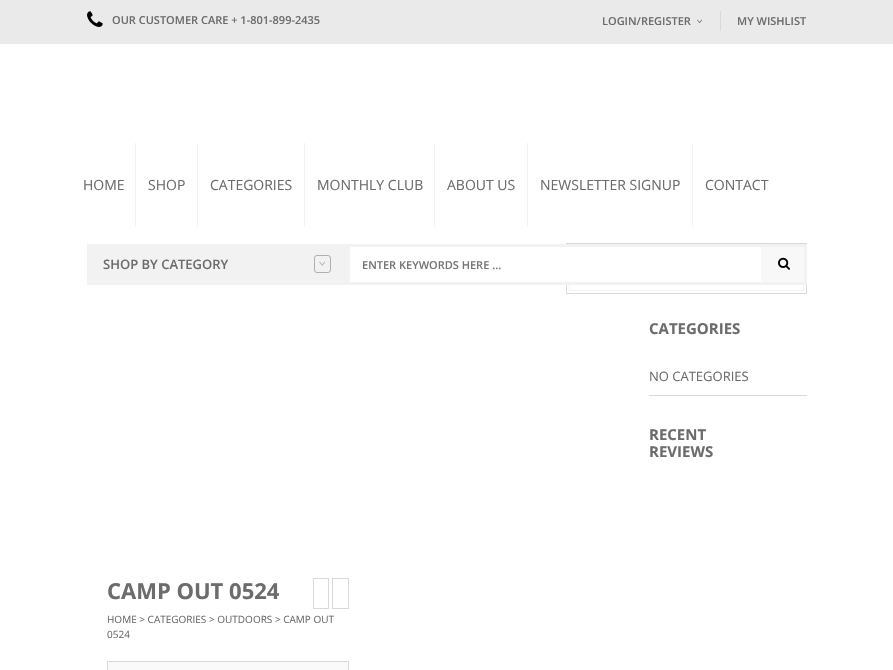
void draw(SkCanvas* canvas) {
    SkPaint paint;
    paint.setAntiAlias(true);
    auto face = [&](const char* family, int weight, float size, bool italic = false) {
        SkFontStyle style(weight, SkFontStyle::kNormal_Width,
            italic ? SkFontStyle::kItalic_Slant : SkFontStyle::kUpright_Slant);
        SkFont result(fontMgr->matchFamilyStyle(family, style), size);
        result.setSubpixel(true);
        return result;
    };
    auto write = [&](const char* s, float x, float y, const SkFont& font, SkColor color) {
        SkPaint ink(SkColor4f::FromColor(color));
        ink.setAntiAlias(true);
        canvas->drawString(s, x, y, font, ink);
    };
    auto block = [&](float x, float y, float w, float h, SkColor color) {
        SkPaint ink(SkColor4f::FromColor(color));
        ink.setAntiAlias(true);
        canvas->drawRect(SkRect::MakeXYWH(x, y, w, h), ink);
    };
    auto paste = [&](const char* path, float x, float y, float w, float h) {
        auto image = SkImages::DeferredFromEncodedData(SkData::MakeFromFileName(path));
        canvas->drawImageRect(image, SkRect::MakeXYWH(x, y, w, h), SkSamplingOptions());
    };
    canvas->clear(SK_ColorWHITE);
    block(0, 0, 893, 44, SkColorSetRGB(234, 234, 234));
    paste("pic1.png", 87, 11, 16, 16);
    auto kFont1 = face("Open Sans", 600, 11);
    write("OUR CUSTOMER CARE + 1-801-899-2435", 112, 24, kFont1, SkColorSetRGB(109, 108, 108));
    write("LOGIN/REGISTER", 602, 25, kFont1, SkColorSetRGB(109, 108, 108));
    paste("pic2.png", 697, 19, 5, 5);
    block(720, 11, 1, 20, SkColorSetRGB(219, 216, 216));
    write("MY WISHLIST", 737, 25, kFont1, SkColorSetRGB(109, 108, 108));
    auto kFont2 = face("Open Sans", 400, 14);
    write("HOME", 83, 190, kFont2, SkColorSetRGB(109, 108, 108));
    block(135, 143, 1, 84, SkColorSetRGB(242, 242, 242));
    write("SHOP", 148, 190, kFont2, SkColorSetRGB(109, 108, 108));
    block(197, 143, 1, 84, SkColorSetRGB(242, 242, 242));
    write("CATEGORIES", 210, 190, kFont2, SkColorSetRGB(109, 108, 108));
    block(304, 143, 1, 84, SkColorSetRGB(242, 242, 242));
    write("MONTHLY CLUB", 317, 190, kFont2, SkColorSetRGB(109, 108, 108));
    block(434, 143, 1, 84, SkColorSetRGB(242, 242, 242));
    write("ABOUT US", 447, 190, kFont2, SkColorSetRGB(109, 108, 108));
    block(527, 143, 1, 84, SkColorSetRGB(242, 242, 242));
    write("NEWSLETTER SIGNUP", 540, 190, kFont2, SkColorSetRGB(109, 108, 108));
    block(692, 143, 1, 84, SkColorSetRGB(242, 242, 242));
    write("CONTACT", 705, 190, kFont2, SkColorSetRGB(109, 108, 108));
    paint.setStyle(SkPaint::kStroke_Style);
    paint.setStrokeWidth(1);
    paint.setColor(SkColorSetRGB(219, 216, 216));
    canvas->drawRect(SkRect::MakeXYWH(566.5f, 243.5f, 240, 50), paint);
    paint.setColor(SkColorSetRGB(242, 242, 242));
    canvas->drawRect(SkRect::MakeXYWH(569.5f, 246.5f, 234, 44), paint);
    block(566, 247, 4, 35, SK_ColorWHITE);
    block(87, 244, 260, 41, SkColorSetRGB(242, 242, 242));
    auto kFont3 = face("Open Sans", 600, 13);
    write("SHOP BY CATEGORY", 103, 269, kFont3, SkColorSetRGB(109, 108, 108));
    paint.setColor(SkColorSetRGB(176, 175, 175));
    canvas->drawRoundRect(SkRect::MakeXYWH(314.5f, 255.5f, 16, 17), 2.5f, 2.5f, paint);
    paste("pic3.png", 319, 261, 6, 5);
    paint.setStrokeWidth(3);
    paint.setColor(SkColorSetRGB(242, 242, 242));
    canvas->drawRect(SkRect::MakeXYWH(348.5f, 245.5f, 457, 38), paint);
    write("ENTER KEYWORDS HERE ...", 362, 269, kFont1, SkColorSetRGB(117, 117, 117));
    block(761, 247, 43, 35, SkColorSetRGB(248, 248, 248));
    paste("pic4.png", 778, 257, 12, 13);
    auto kFont4 = face("Open Sans", 700, 15);
    write("CATEGORIES", 649, 334, kFont4, SkColorSetRGB(109, 108, 108));
    block(649, 395, 158, 1, SkColorSetRGB(219, 216, 216));
    auto kFont5 = face("Open Sans", 400, 13);
    write("NO CATEGORIES", 649, 381, kFont5, SkColorSetRGB(109, 108, 108));
    write("RECENT", 649, 440, kFont4, SkColorSetRGB(109, 108, 108));
    write("REVIEWS", 649, 457, kFont4, SkColorSetRGB(109, 108, 108));
    auto kFont6 = face("Open Sans", 700, 22);
    write("CAMP OUT 0524", 107, 599, kFont6, SkColorSetRGB(109, 108, 108));
    paint.setStrokeWidth(1);
    paint.setColor(SkColorSetRGB(219, 216, 216));
    canvas->drawRect(SkRect::MakeXYWH(313.5f, 578.5f, 15, 30), paint);
    canvas->drawRect(SkRect::MakeXYWH(332.5f, 578.5f, 16, 30), paint);
    auto kFont7 = face("Open Sans", 400, 10);
    write("HOME > CATEGORIES > OUTDOORS > CAMP OUT", 107, 623, kFont7, SkColorSetRGB(109, 108, 108));
    write("0524", 107, 638, kFont7, SkColorSetRGB(109, 108, 108));
    paint.setStyle(SkPaint::kFill_Style);
    paint.setColor(SkColorSetRGB(250, 250, 250));
    canvas->drawRect(SkRect::MakeXYWH(107.5f, 661.5f, 241, 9), paint);
    paint.setStyle(SkPaint::kStroke_Style);
    paint.setColor(SkColorSetRGB(219, 216, 216));
    canvas->drawRect(SkRect::MakeXYWH(107.5f, 661.5f, 241, 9), paint);
}
